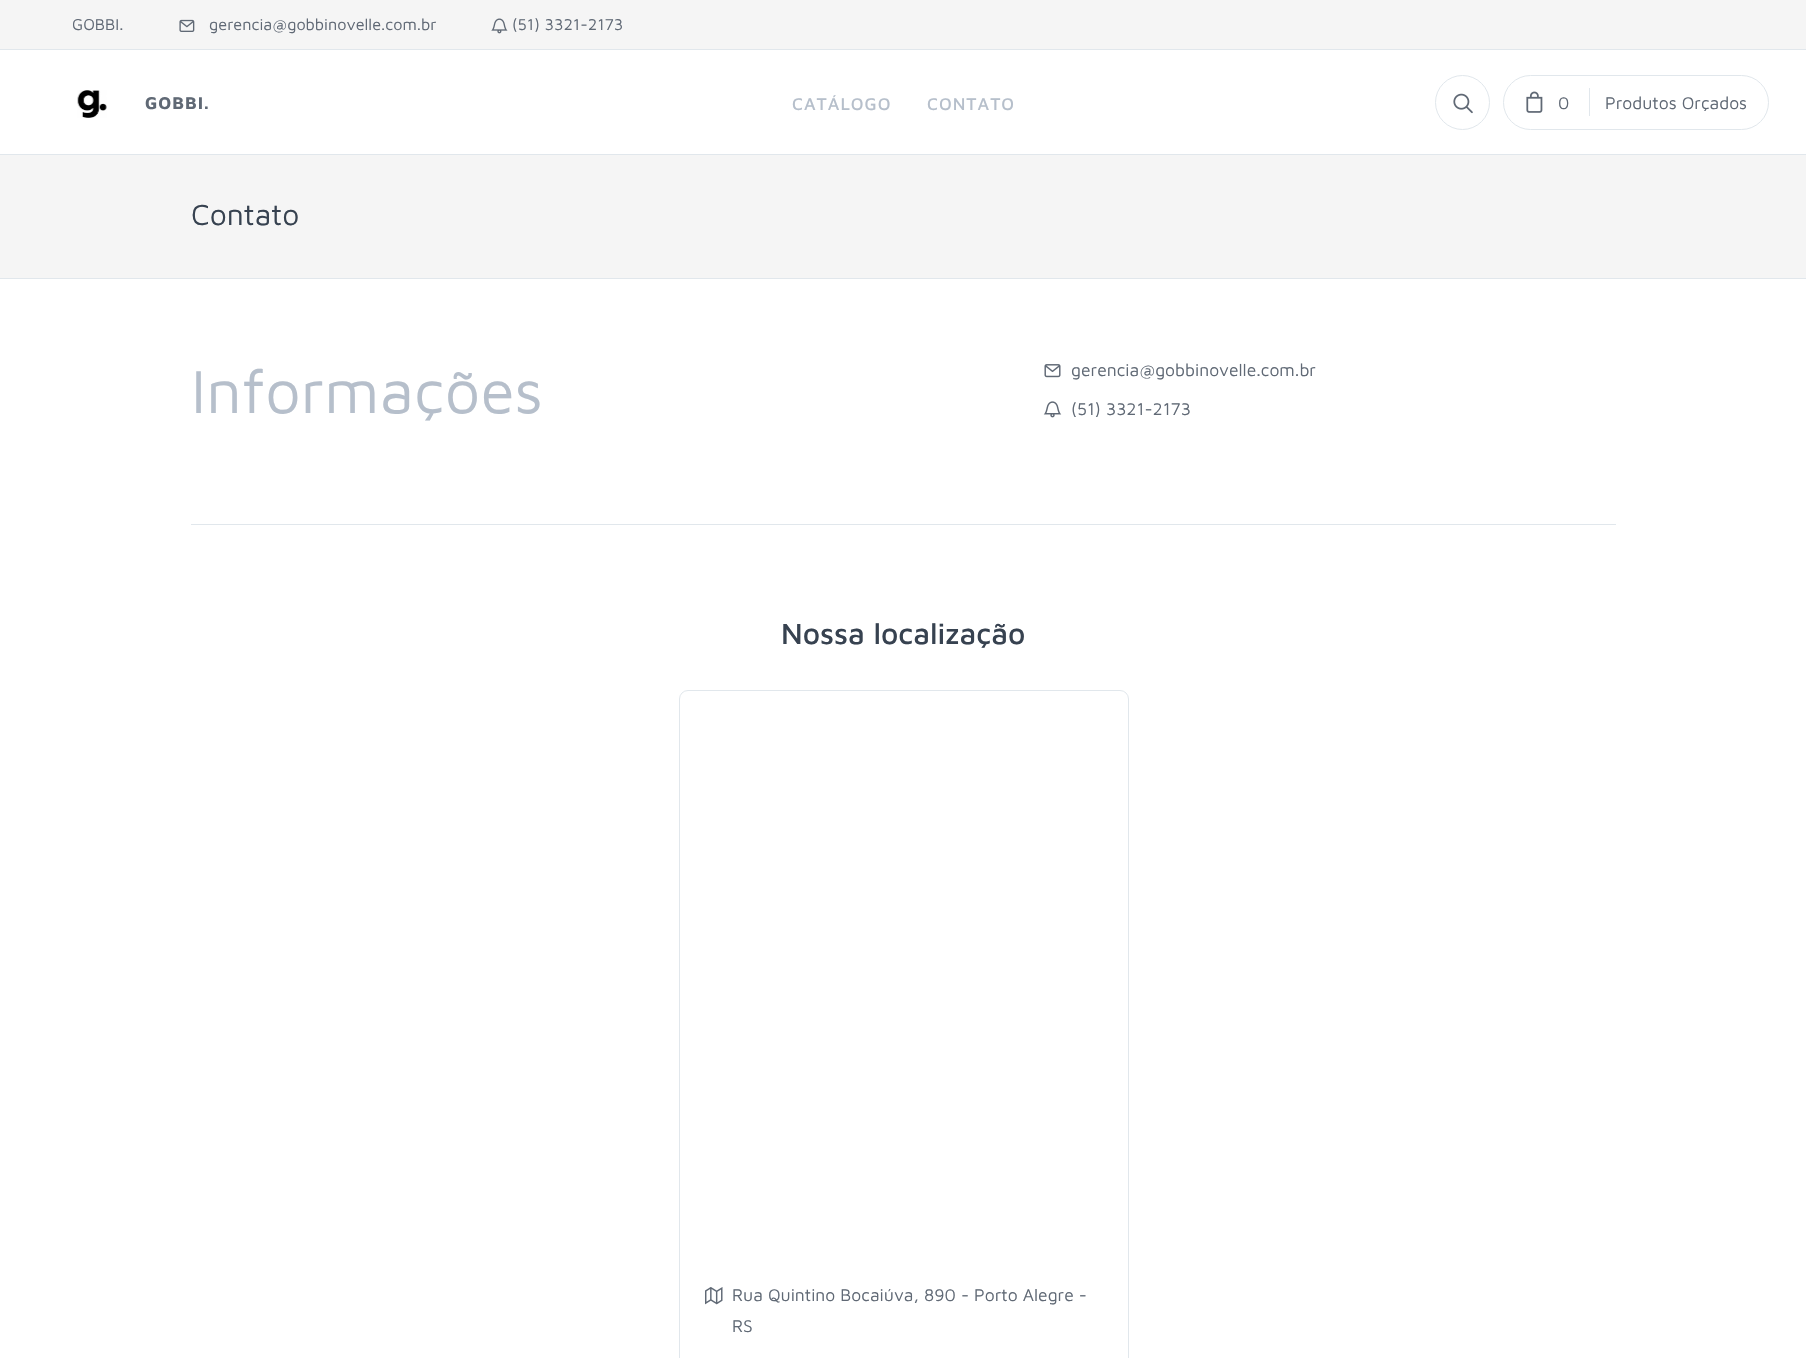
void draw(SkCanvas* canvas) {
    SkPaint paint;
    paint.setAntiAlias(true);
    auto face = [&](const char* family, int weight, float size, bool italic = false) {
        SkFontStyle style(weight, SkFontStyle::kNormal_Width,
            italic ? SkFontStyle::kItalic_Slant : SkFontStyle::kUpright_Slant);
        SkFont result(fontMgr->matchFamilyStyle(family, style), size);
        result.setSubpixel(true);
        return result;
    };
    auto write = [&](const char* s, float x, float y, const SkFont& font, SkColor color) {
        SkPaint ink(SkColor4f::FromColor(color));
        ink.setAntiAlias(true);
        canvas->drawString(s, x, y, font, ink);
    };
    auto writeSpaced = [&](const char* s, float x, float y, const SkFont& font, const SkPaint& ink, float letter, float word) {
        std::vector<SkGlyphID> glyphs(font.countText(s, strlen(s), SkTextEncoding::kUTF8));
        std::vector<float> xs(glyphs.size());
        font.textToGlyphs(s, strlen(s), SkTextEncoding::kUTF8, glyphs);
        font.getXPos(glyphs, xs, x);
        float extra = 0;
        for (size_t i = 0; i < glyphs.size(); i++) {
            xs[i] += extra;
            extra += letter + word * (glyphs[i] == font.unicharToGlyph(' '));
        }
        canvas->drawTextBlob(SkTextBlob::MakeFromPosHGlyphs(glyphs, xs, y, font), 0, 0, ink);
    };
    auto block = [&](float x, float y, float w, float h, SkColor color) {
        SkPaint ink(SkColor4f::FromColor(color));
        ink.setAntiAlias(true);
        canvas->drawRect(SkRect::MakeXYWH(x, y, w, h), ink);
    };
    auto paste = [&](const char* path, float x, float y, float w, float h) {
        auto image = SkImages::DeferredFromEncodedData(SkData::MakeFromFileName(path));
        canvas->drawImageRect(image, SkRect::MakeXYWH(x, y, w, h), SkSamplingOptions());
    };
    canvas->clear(SK_ColorWHITE);
    block(0, 154, 1806, 1, SkColorSetRGB(225, 231, 236));
    block(0, 0, 1806, 49, SkColorSetRGB(245, 245, 245));
    block(0, 49, 1806, 1, SkColorSetRGB(225, 231, 236));
    auto kFont1 = face("Maven Pro", 400, 16.25f);
    write("GOBBI.", 72, 30, kFont1, SkColorSetRGB(96, 105, 117));
    paste("pic1.png", 179, 19, 16, 13);
    write("gerencia@gobbinovelle.com.br", 209, 30, kFont1, SkColorSetRGB(96, 105, 117));
    paste("pic2.png", 491, 18, 17, 16);
    write("(51) 3321-2173", 512, 30, kFont1, SkColorSetRGB(96, 105, 117));
    paste("pic3.png", 77, 90, 30, 28);
    auto kFont2 = face("Maven Pro", 700, 17.5f);
    paint.setColor(SkColorSetRGB(96, 105, 117));
    writeSpaced("GOBBI.", 145, 109, kFont2, paint, 1, 0);
    auto kFont3 = face("Maven Pro", 500, 17.5f);
    paint.setColor(SkColorSetRGB(182, 191, 203));
    writeSpaced("CATÁLOGO", 792, 110, kFont3, paint, 1, 0);
    writeSpaced("CONTATO", 927, 110, kFont3, paint, 1, 0);
    paint.setStyle(SkPaint::kStroke_Style);
    paint.setStrokeWidth(1);
    paint.setColor(SkColorSetRGB(225, 231, 236));
    canvas->drawCircle(1462.5f, 102.5f, 27, paint);
    paste("pic4.png", 1453, 93, 20, 21);
    canvas->drawRoundRect(SkRect::MakeXYWH(1503.5f, 75.5f, 265, 54), 27, 27, paint);
    paste("pic5.png", 1526, 91, 17, 22);
    auto kFont4 = face("Maven Pro", 400, 17.5f);
    write("0", 1558, 109, kFont4, SkColorSetRGB(96, 105, 117));
    block(1589, 88, 1, 28, SkColorSetRGB(225, 231, 236));
    write("Produtos Orçados", 1605, 109, kFont4, SkColorSetRGB(96, 105, 117));
    block(0, 155, 1806, 123, SkColorSetRGB(245, 245, 245));
    block(0, 278, 1806, 1, SkColorSetRGB(225, 231, 236));
    auto kFont5 = face("Maven Pro", 400, 30);
    write("Contato", 191, 225, kFont5, SkColorSetRGB(55, 66, 80));
    auto kFont6 = face("Maven Pro", 400, 62.5f);
    write("Informações", 191, 413, kFont6, SkColorSetRGB(182, 191, 203));
    paste("pic6.png", 1044, 364, 17, 14);
    write("gerencia@gobbinovelle.com.br", 1071, 376, kFont4, SkColorSetRGB(96, 105, 117));
    paste("pic7.png", 1043, 401, 19, 17);
    write("(51) 3321-2173", 1071, 415, kFont4, SkColorSetRGB(96, 105, 117));
    block(191, 524, 1425, 1, SkColorSetRGB(225, 231, 236));
    auto kFont7 = face("Maven Pro", 500, 30);
    write("Nossa localização", 781, 644, kFont7, SkColorSetRGB(55, 66, 80));
    canvas->drawRoundRect(SkRect::MakeXYWH(679.5f, 690.5f, 449, 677), 8.5f, 8.5f, paint);
    paste("pic8.png", 705, 1287, 18, 18);
    write("Rua Quintino Bocaiúva, 890 - Porto Alegre -", 732, 1301, kFont4, SkColorSetRGB(96, 105, 117));
    write("RS", 732, 1332, kFont4, SkColorSetRGB(96, 105, 117));
}
